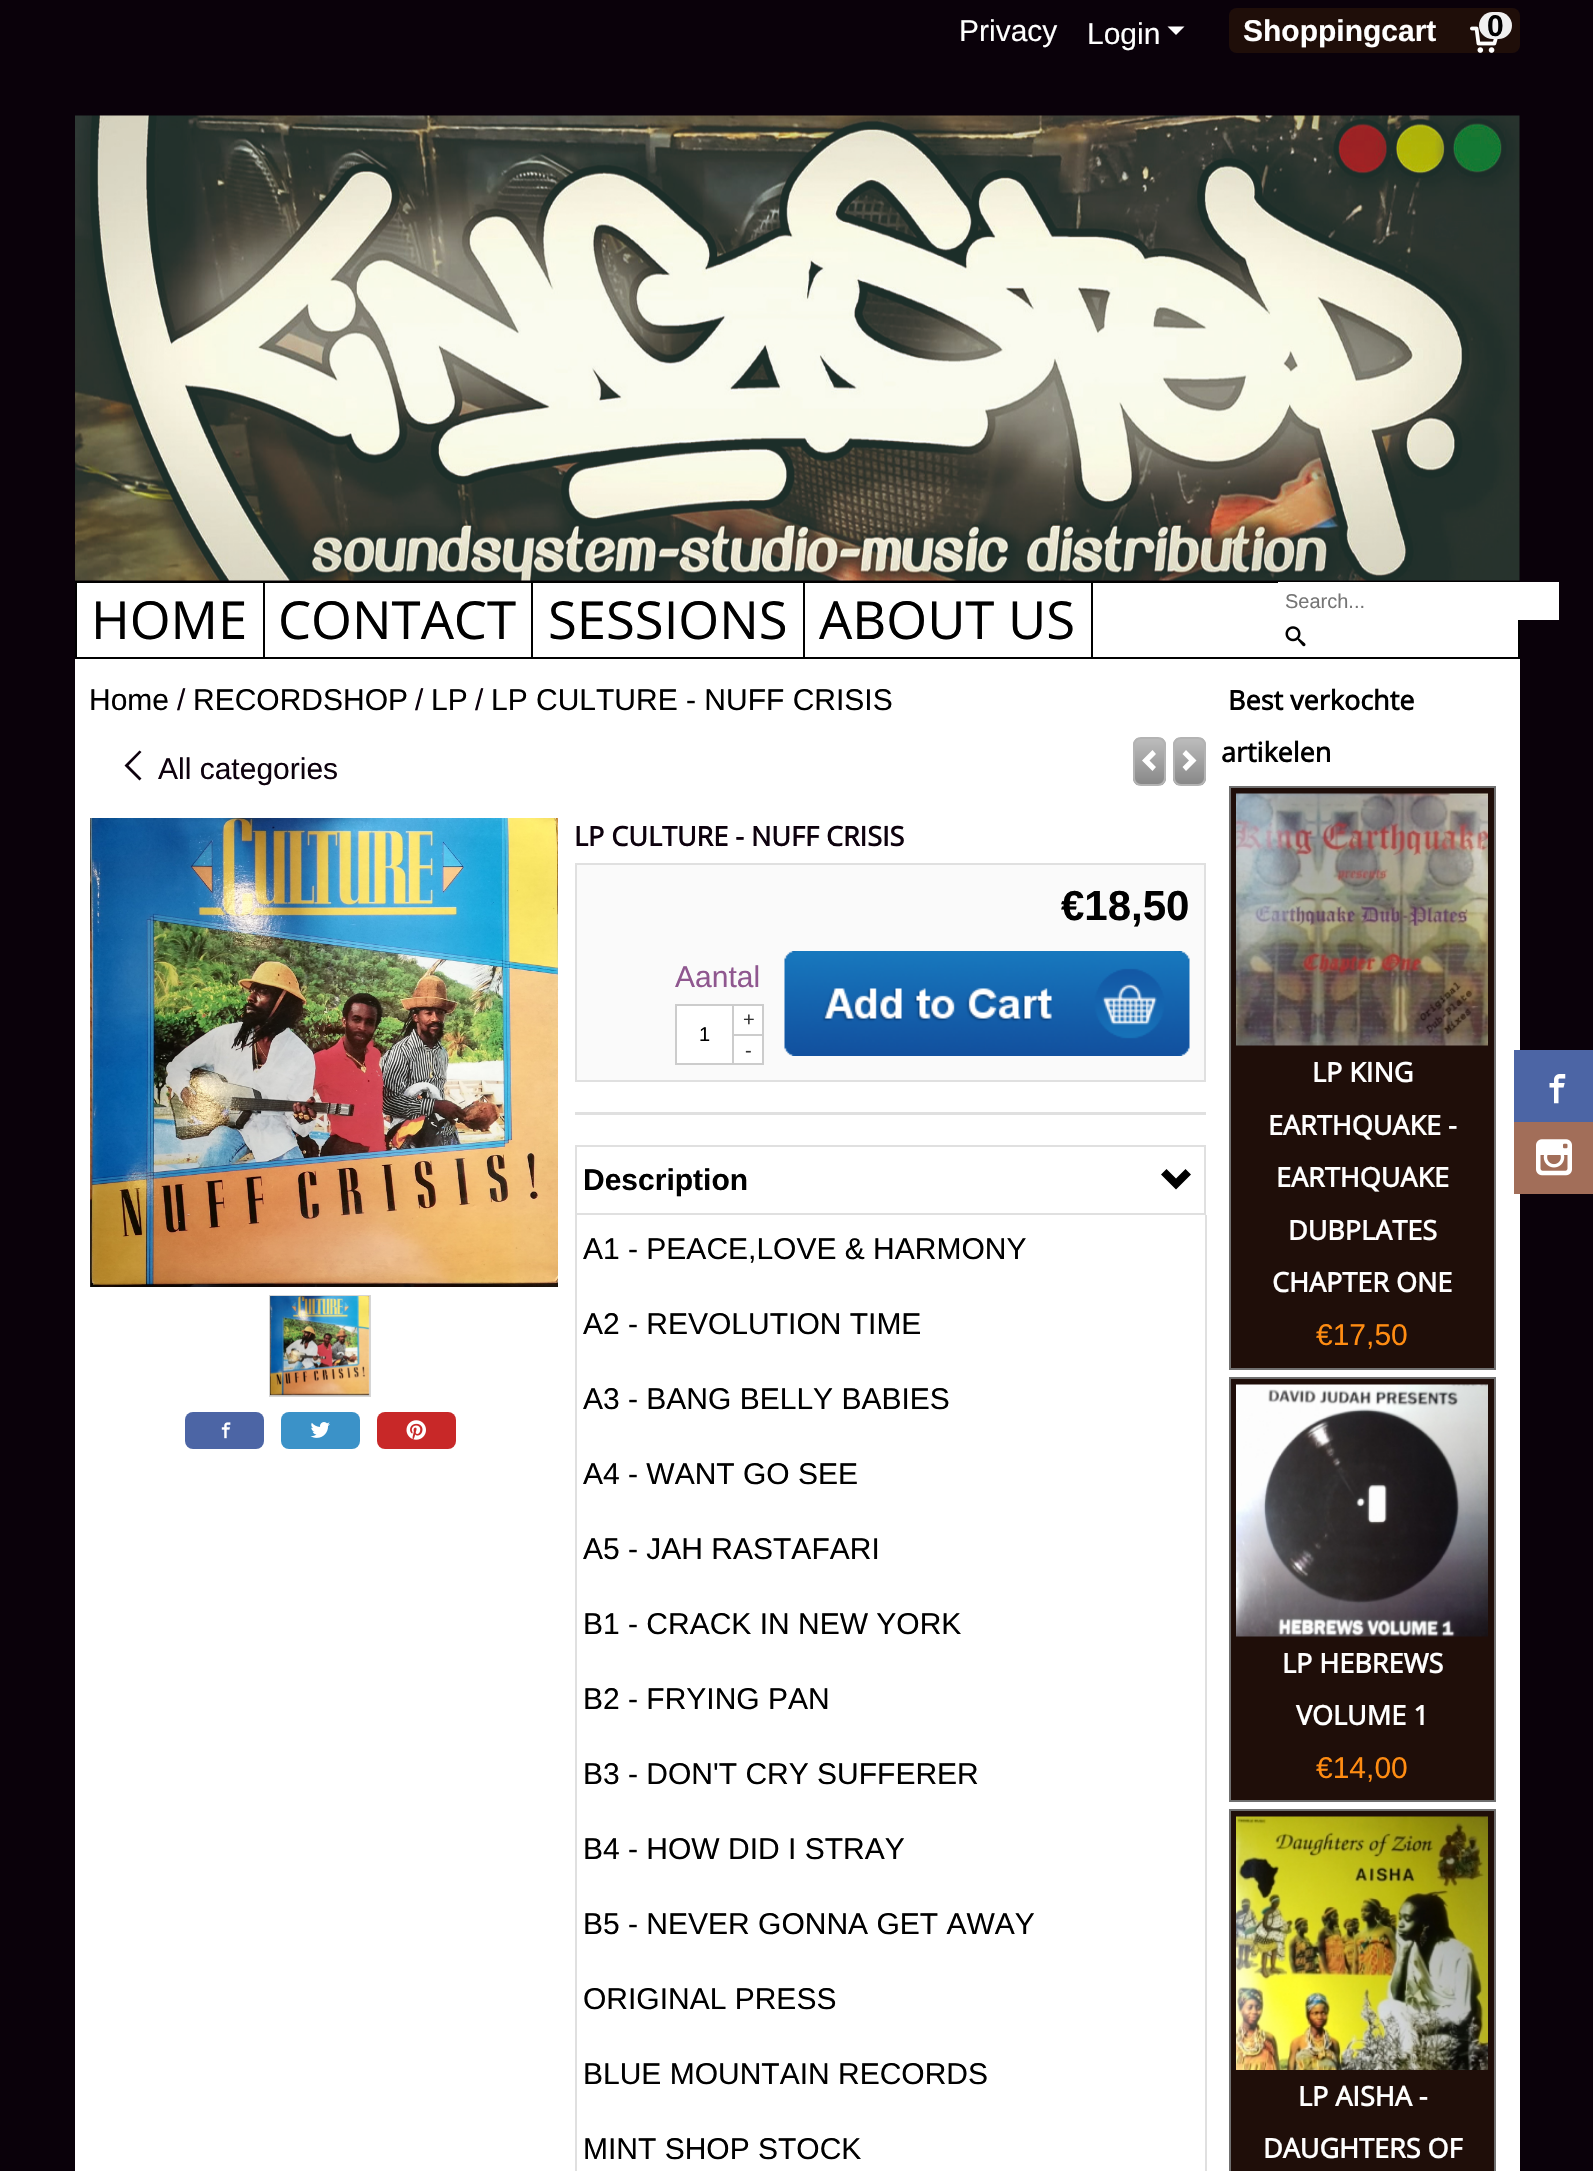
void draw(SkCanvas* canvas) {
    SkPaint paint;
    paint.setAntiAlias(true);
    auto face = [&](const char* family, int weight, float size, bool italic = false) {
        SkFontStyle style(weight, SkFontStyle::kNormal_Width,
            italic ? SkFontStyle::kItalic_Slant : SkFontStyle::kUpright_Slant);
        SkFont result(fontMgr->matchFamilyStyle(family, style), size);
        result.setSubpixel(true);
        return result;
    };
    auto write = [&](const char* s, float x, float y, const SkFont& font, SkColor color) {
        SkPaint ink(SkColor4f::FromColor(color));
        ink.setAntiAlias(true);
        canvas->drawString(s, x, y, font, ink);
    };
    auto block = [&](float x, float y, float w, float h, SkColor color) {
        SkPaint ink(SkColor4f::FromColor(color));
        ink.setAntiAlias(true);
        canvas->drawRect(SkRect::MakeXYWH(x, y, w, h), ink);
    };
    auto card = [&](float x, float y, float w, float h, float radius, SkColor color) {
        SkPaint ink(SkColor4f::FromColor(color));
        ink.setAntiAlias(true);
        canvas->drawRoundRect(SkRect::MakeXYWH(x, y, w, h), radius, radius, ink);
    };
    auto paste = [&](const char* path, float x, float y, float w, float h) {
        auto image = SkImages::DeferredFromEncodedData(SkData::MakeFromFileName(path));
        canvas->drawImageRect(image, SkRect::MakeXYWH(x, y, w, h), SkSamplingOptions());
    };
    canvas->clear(SkColorSetRGB(10, 1, 10));
    auto kFont1 = face("Liberation Sans", 400, 30);
    write("Privacy", 959, 41, kFont1, SK_ColorWHITE);
    write("Login", 1087, 44, kFont1, SK_ColorWHITE);
    paint.setColor(SK_ColorWHITE);
    canvas->drawPath(SkPathBuilder().moveTo(1167.5f, 26.5f).lineTo(1176, 35).lineTo(1184.5f, 26.5f).close().detach(), paint);
    card(1229, 8, 291, 45, 8, SkColorSetRGB(31, 14, 9));
    auto kFont2 = face("Liberation Sans", 700, 30);
    write("Shoppingcart", 1243, 41, kFont2, SK_ColorWHITE);
    paste("pic1.png", 1470, 26, 28, 27);
    card(1479, 12, 33, 27, 13.5f, SkColorSetRGB(240, 240, 240));
    write("0", 1487, 36, kFont2, SK_ColorBLACK);
    paste("pic2.png", 75, 115, 1445, 466);
    canvas->drawRect(SkRect::MakeXYWH(76, 582, 1443, 76), paint);
    paint.setStyle(SkPaint::kStroke_Style);
    paint.setStrokeWidth(2);
    paint.setColor(SK_ColorBLACK);
    canvas->drawRect(SkRect::MakeXYWH(76, 582, 1443, 76), paint);
    block(263, 582, 2, 75, SK_ColorBLACK);
    auto kFont3 = face("Open Sans", 400, 52.5f);
    write("HOME", 91, 639, kFont3, SK_ColorBLACK);
    block(531, 582, 2, 75, SK_ColorBLACK);
    write("CONTACT", 278, 639, kFont3, SK_ColorBLACK);
    block(803, 582, 2, 75, SK_ColorBLACK);
    write("SESSIONS", 548, 639, kFont3, SK_ColorBLACK);
    block(1091, 582, 2, 75, SK_ColorBLACK);
    write("ABOUT US", 819, 639, kFont3, SK_ColorBLACK);
    block(1278, 582, 281, 38, SK_ColorWHITE);
    auto kFont4 = face("Liberation Sans", 400, 20);
    write("Search...", 1285, 608, kFont4, SkColorSetRGB(117, 117, 117));
    paste("pic3.png", 1285, 626, 21, 21);
    block(75, 659, 1445, 1512, SK_ColorWHITE);
    write("Home", 89, 710, kFont1, SK_ColorBLACK);
    write("/", 177, 710, kFont1, SkColorSetRGB(13, 1, 13));
    write("RECORDSHOP", 193, 710, kFont1, SK_ColorBLACK);
    write("/", 415, 710, kFont1, SkColorSetRGB(13, 1, 13));
    write("LP", 431, 710, kFont1, SK_ColorBLACK);
    write("/", 475, 710, kFont1, SkColorSetRGB(13, 1, 13));
    write("LP CULTURE - NUFF CRISIS", 491, 710, kFont1, SK_ColorBLACK);
    write("All categories", 158, 779, kFont1, SkColorSetRGB(13, 1, 13));
    paint.setStyle(SkPaint::kFill_Style);
    paint.setColor(SkColorSetRGB(13, 1, 13));
    canvas->drawPath(SkPathBuilder().moveTo(139.5f, 780.5f).lineTo(141.5f, 778.5f).lineTo(128.5f, 765.5f).lineTo(141.5f, 752).lineTo(139.5f, 750.5f).lineTo(124.5f, 765.5f).close().detach(), paint);
    canvas->save();
    canvas->clipPath(SkPathBuilder().moveTo(1141, 737).lineTo(1158, 737).cubicTo(1162.5f, 737, 1166, 740.5f, 1166, 745).lineTo(1166, 778).cubicTo(1166, 782.5f, 1162.5f, 786, 1158, 786).lineTo(1141, 786).cubicTo(1136.5f, 786, 1133, 782.5f, 1133, 778).lineTo(1133, 745).cubicTo(1133, 740.5f, 1136.5f, 737, 1141, 737).close().detach(), true);
    {
        const SkColor colors[] = {SkColorSetRGB(189, 189, 189), SkColorSetRGB(135, 135, 135)};
        const float stops[] = {0, 1};
        const SkPoint ends[] = {{1149, 738}, {1149, 785}};
        paint.setShader(SkGradientShader::MakeLinear(ends, colors, stops, 2, SkTileMode::kClamp));
        paint.setAlpha(255);
    }
    canvas->drawRect(SkRect::MakeXYWH(1133, 738, 33, 47), paint);
    canvas->restore();
    paint.setStyle(SkPaint::kStroke_Style);
    paint.setShader(nullptr);
    paint.setColor(SkColorSetRGB(179, 179, 179));
    canvas->drawRoundRect(SkRect::MakeXYWH(1134, 738, 31, 47), 7, 7, paint);
    paint.setStyle(SkPaint::kFill_Style);
    paint.setColor(SK_ColorWHITE);
    canvas->drawPath(SkPathBuilder().moveTo(1152.5f, 771).lineTo(1156, 767).lineTo(1149.5f, 760.5f).lineTo(1156, 754).lineTo(1152.5f, 750).lineTo(1142, 760.5f).close().detach(), paint);
    canvas->save();
    canvas->clipPath(SkPathBuilder().moveTo(1181, 737).lineTo(1198, 737).cubicTo(1202.5f, 737, 1206, 740.5f, 1206, 745).lineTo(1206, 778).cubicTo(1206, 782.5f, 1202.5f, 786, 1198, 786).lineTo(1181, 786).cubicTo(1176.5f, 786, 1173, 782.5f, 1173, 778).lineTo(1173, 745).cubicTo(1173, 740.5f, 1176.5f, 737, 1181, 737).close().detach(), true);
    {
        const SkColor colors[] = {SkColorSetRGB(189, 189, 189), SkColorSetRGB(135, 135, 135)};
        const float stops[] = {0, 1};
        const SkPoint ends[] = {{1190, 738}, {1190, 785}};
        paint.setShader(SkGradientShader::MakeLinear(ends, colors, stops, 2, SkTileMode::kClamp));
        paint.setAlpha(255);
    }
    canvas->drawRect(SkRect::MakeXYWH(1173, 738, 33, 47), paint);
    canvas->restore();
    paint.setStyle(SkPaint::kStroke_Style);
    paint.setShader(nullptr);
    paint.setColor(SkColorSetRGB(179, 179, 179));
    canvas->drawRoundRect(SkRect::MakeXYWH(1174, 738, 31, 47), 7, 7, paint);
    paint.setStyle(SkPaint::kFill_Style);
    paint.setColor(SK_ColorWHITE);
    canvas->drawPath(SkPathBuilder().moveTo(1186, 750).lineTo(1182.5f, 754).lineTo(1189, 760.5f).lineTo(1182.5f, 767).lineTo(1186, 771).lineTo(1196.5f, 760.5f).close().detach(), paint);
    paste("pic4.png", 90, 818, 468, 469);
    paint.setStyle(SkPaint::kStroke_Style);
    paint.setColor(SkColorSetRGB(214, 214, 214));
    canvas->drawRect(SkRect::MakeXYWH(270, 1296, 100, 100), paint);
    paste("pic5.png", 270, 1296, 100, 100);
    card(185, 1412, 79, 37, 8, SkColorSetRGB(76, 101, 165));
    paste("pic6.png", 221, 1422, 10, 17);
    card(281, 1412, 79, 37, 8, SkColorSetRGB(59, 146, 200));
    paste("pic7.png", 310, 1422, 20, 16);
    card(377, 1412, 79, 37, 8, SkColorSetRGB(200, 40, 40));
    paste("pic8.png", 406, 1420, 20, 20);
    auto kFont5 = face("Open Sans", 700, 27);
    write("LP CULTURE - NUFF CRISIS", 574, 846, kFont5, SkColorSetRGB(13, 1, 13));
    paint.setStyle(SkPaint::kFill_Style);
    paint.setColor(SkColorSetRGB(250, 250, 250));
    canvas->drawRect(SkRect::MakeXYWH(576, 864, 629, 217), paint);
    paint.setStyle(SkPaint::kStroke_Style);
    paint.setColor(SkColorSetRGB(224, 224, 224));
    canvas->drawRect(SkRect::MakeXYWH(576, 864, 629, 217), paint);
    auto kFont6 = face("Liberation Sans", 700, 42);
    write("€18,50", 1061, 920, kFont6, SK_ColorBLACK);
    write("Aantal", 675, 987, kFont1, SkColorSetRGB(143, 87, 143));
    paint.setStyle(SkPaint::kFill_Style);
    paint.setColor(SK_ColorWHITE);
    canvas->drawRect(SkRect::MakeXYWH(676, 1005, 87, 59), paint);
    paint.setStyle(SkPaint::kStroke_Style);
    paint.setColor(SkColorSetRGB(204, 204, 204));
    canvas->drawRect(SkRect::MakeXYWH(676, 1005, 87, 59), paint);
    write("1", 699, 1041, kFont4, SK_ColorBLACK);
    block(732, 1034, 32, 2, SkColorSetRGB(204, 204, 204));
    block(732, 1004, 2, 60, SkColorSetRGB(204, 204, 204));
    write("+", 743, 1026, kFont4, SkColorSetRGB(51, 51, 51));
    write("-", 745, 1057, kFont4, SkColorSetRGB(51, 51, 51));
    paste("pic9.png", 784, 951, 406, 105);
    block(575, 1112, 631, 3, SkColorSetRGB(224, 224, 224));
    paint.setColor(SkColorSetRGB(224, 224, 224));
    canvas->drawRect(SkRect::MakeXYWH(576, 1146, 629, 68), paint);
    write("Description", 583, 1190, kFont2, SK_ColorBLACK);
    paint.setStyle(SkPaint::kFill_Style);
    paint.setColor(SK_ColorBLACK);
    canvas->drawPath(SkPathBuilder().moveTo(1191, 1174.5f).lineTo(1185.5f, 1169).lineTo(1176, 1178.5f).lineTo(1166.5f, 1169).lineTo(1161, 1174.5f).lineTo(1176, 1189.5f).close().detach(), paint);
    block(1205, 1215, 2, 956, SkColorSetRGB(224, 224, 224));
    block(575, 1215, 2, 956, SkColorSetRGB(224, 224, 224));
    write("A1 - PEACE,LOVE & HARMONY", 583, 1259, kFont1, SK_ColorBLACK);
    write("A2 - REVOLUTION TIME", 583, 1334, kFont1, SK_ColorBLACK);
    write("A3 - BANG BELLY BABIES", 583, 1409, kFont1, SK_ColorBLACK);
    write("A4 - WANT GO SEE", 583, 1484, kFont1, SK_ColorBLACK);
    write("A5 - JAH RASTAFARI", 583, 1559, kFont1, SK_ColorBLACK);
    write("B1 - CRACK IN NEW YORK", 583, 1634, kFont1, SK_ColorBLACK);
    write("B2 - FRYING PAN", 583, 1709, kFont1, SK_ColorBLACK);
    write("B3 - DON'T CRY SUFFERER", 583, 1784, kFont1, SK_ColorBLACK);
    write("B4 - HOW DID I STRAY", 583, 1859, kFont1, SK_ColorBLACK);
    write("B5 - NEVER GONNA GET AWAY", 583, 1934, kFont1, SK_ColorBLACK);
    write("ORIGINAL PRESS", 583, 2009, kFont1, SK_ColorBLACK);
    write("BLUE MOUNTAIN RECORDS", 583, 2084, kFont1, SK_ColorBLACK);
    write("MINT SHOP STOCK", 583, 2159, kFont1, SK_ColorBLACK);
    write("Best verkochte", 1228, 710, kFont5, SK_ColorBLACK);
    write("artikelen", 1221, 762, kFont5, SK_ColorBLACK);
    paint.setColor(SkColorSetRGB(31, 14, 9));
    canvas->drawRect(SkRect::MakeXYWH(1230, 787, 265, 582), paint);
    paint.setStyle(SkPaint::kStroke_Style);
    paint.setColor(SkColorSetRGB(112, 112, 112));
    canvas->drawRect(SkRect::MakeXYWH(1230, 787, 265, 582), paint);
    paste("pic10.png", 1236, 793, 252, 253);
    write("LP KING", 1312, 1082, kFont5, SK_ColorWHITE);
    write("EARTHQUAKE -", 1268, 1135, kFont5, SK_ColorWHITE);
    write("EARTHQUAKE", 1276, 1187, kFont5, SK_ColorWHITE);
    write("DUBPLATES", 1288, 1240, kFont5, SK_ColorWHITE);
    write("CHAPTER ONE", 1272, 1292, kFont5, SK_ColorWHITE);
    write("€17,50", 1316, 1345, kFont1, SkColorSetRGB(255, 140, 18));
    paint.setStyle(SkPaint::kFill_Style);
    paint.setColor(SkColorSetRGB(31, 14, 9));
    canvas->drawRect(SkRect::MakeXYWH(1230, 1378, 265, 423), paint);
    paint.setStyle(SkPaint::kStroke_Style);
    paint.setColor(SkColorSetRGB(112, 112, 112));
    canvas->drawRect(SkRect::MakeXYWH(1230, 1378, 265, 423), paint);
    paste("pic11.png", 1236, 1384, 252, 253);
    write("LP HEBREWS", 1282, 1673, kFont5, SK_ColorWHITE);
    write("VOLUME 1", 1296, 1725, kFont5, SK_ColorWHITE);
    write("€14,00", 1316, 1778, kFont1, SkColorSetRGB(255, 140, 18));
    paint.setStyle(SkPaint::kFill_Style);
    paint.setColor(SkColorSetRGB(31, 14, 9));
    canvas->drawRect(SkRect::MakeXYWH(1230, 1810, 265, 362), paint);
    paint.setStyle(SkPaint::kStroke_Style);
    paint.setColor(SkColorSetRGB(112, 112, 112));
    canvas->drawRect(SkRect::MakeXYWH(1230, 1810, 265, 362), paint);
    paste("pic12.png", 1236, 1816, 252, 254);
    write("LP AISHA -", 1298, 2106, kFont5, SK_ColorWHITE);
    write("DAUGHTERS OF", 1263, 2158, kFont5, SK_ColorWHITE);
    block(1514, 1050, 79, 72, SkColorSetRGB(76, 101, 165));
    paste("pic13.png", 1549, 1074, 17, 30);
    block(1514, 1122, 79, 72, SkColorSetRGB(162, 110, 89));
    paste("pic14.png", 1536, 1139, 36, 37);
}
